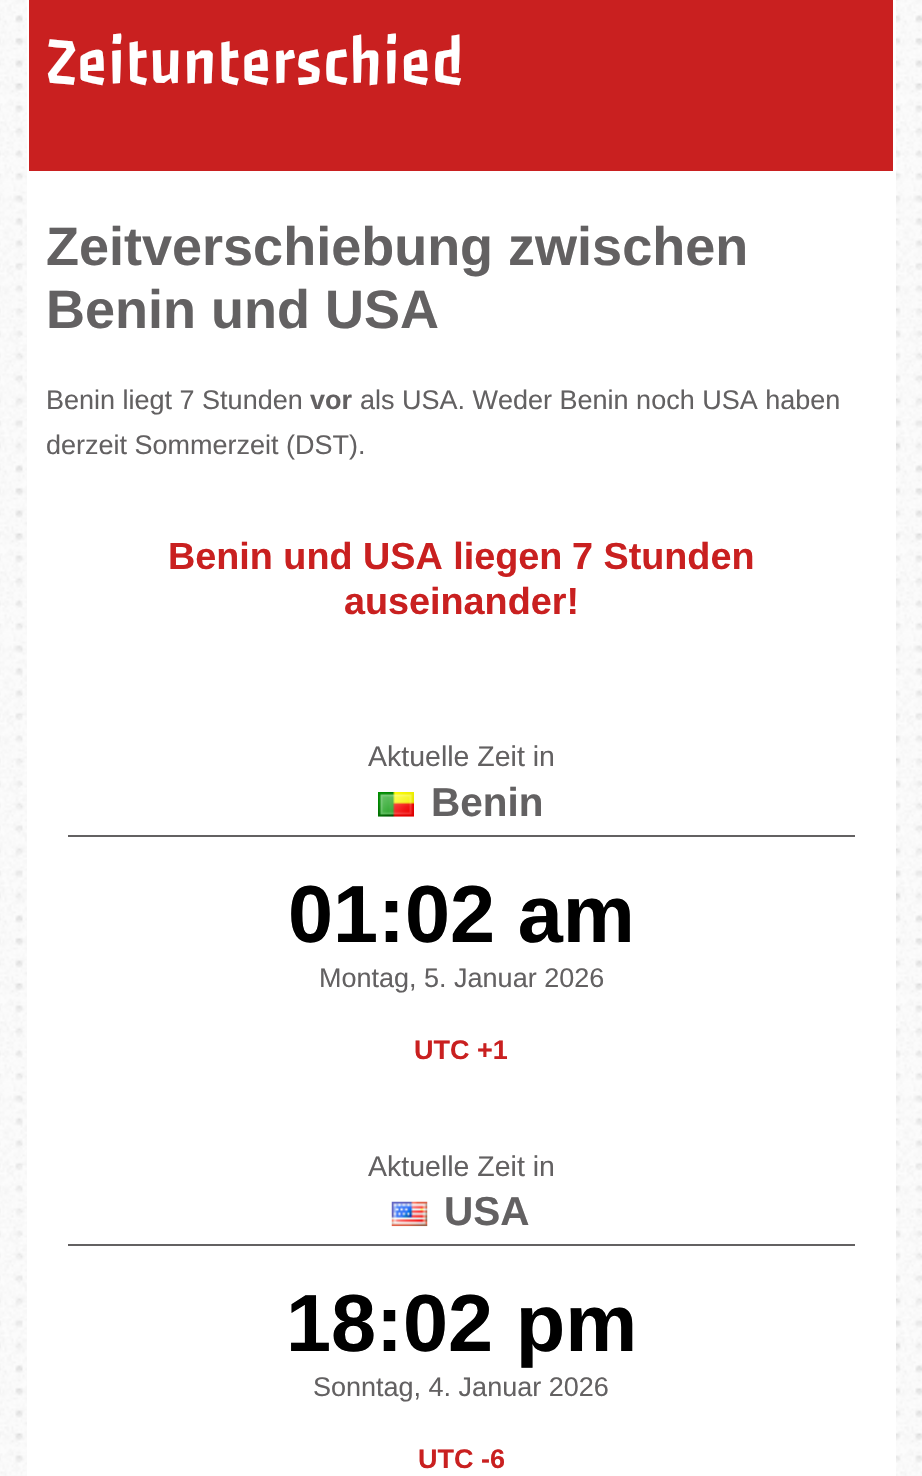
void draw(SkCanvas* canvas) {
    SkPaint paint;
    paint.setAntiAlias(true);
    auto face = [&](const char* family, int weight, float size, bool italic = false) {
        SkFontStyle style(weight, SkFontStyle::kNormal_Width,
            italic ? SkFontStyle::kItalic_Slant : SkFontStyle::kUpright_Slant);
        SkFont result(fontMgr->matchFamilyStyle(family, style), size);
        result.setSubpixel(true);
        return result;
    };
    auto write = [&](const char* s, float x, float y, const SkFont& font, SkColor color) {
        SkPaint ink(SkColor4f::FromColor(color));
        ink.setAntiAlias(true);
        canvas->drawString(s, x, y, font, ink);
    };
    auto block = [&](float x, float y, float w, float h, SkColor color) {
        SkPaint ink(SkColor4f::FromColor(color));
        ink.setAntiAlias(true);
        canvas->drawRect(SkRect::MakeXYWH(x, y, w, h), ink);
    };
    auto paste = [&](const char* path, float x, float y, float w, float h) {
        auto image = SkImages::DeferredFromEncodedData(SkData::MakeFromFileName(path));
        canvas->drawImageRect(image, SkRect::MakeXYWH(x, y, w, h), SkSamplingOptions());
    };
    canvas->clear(SK_ColorWHITE);
    paste("pic1.png", 0, 0, 922, 1476);
    block(27, 0, 869, 1476, SK_ColorWHITE);
    block(29, 0, 864, 171, SkColorSetRGB(201, 32, 32));
    auto kFont1 = face("Passero One", 400, 67.5f);
    write("Zeitunterschied", 46, 83, kFont1, SK_ColorWHITE);
    auto kFont2 = face("Liberation Sans", 700, 54);
    write("Zeitverschiebung zwischen", 46, 265, kFont2, SkColorSetRGB(99, 97, 98));
    write("Benin und USA", 46, 328, kFont2, SkColorSetRGB(99, 97, 98));
    auto kFont3 = face("Liberation Sans", 400, 27);
    write("Benin liegt 7 Stunden", 46, 409, kFont3, SkColorSetRGB(99, 97, 98));
    auto kFont4 = face("Liberation Sans", 700, 27);
    write("vor", 310, 409, kFont4, SkColorSetRGB(99, 97, 98));
    write("als USA. Weder Benin noch USA haben", 360, 409, kFont3, SkColorSetRGB(99, 97, 98));
    write("derzeit Sommerzeit (DST).", 46, 454, kFont3, SkColorSetRGB(99, 97, 98));
    auto kFont5 = face("Liberation Sans", 700, 37.75f);
    write("Benin und USA liegen", 168, 569, kFont5, SkColorSetRGB(201, 32, 32));
    write("7 Stunden", 572, 569, kFont5, SkColorSetRGB(201, 32, 32));
    write("auseinander!", 344, 614, kFont5, SkColorSetRGB(201, 32, 32));
    block(68, 835, 787, 2, SkColorSetRGB(99, 97, 98));
    auto kFont6 = face("Liberation Sans", 400, 28.5f);
    write("Aktuelle Zeit in", 368, 766, kFont6, SkColorSetRGB(99, 97, 98));
    paste("pic2.png", 378, 792, 36, 25);
    auto kFont7 = face("Liberation Sans", 700, 40.5f);
    write("Benin", 431, 816, kFont7, SkColorSetRGB(99, 97, 98));
    auto kFont8 = face("Liberation Sans", 700, 81);
    write("01:02 am", 288, 942, kFont8, SK_ColorBLACK);
    write("Montag, 5. Januar 2026", 319, 987, kFont3, SkColorSetRGB(99, 97, 98));
    write("UTC +1", 414, 1059, kFont4, SkColorSetRGB(201, 32, 32));
    block(68, 1244, 787, 2, SkColorSetRGB(99, 97, 98));
    write("Aktuelle Zeit in", 368, 1176, kFont6, SkColorSetRGB(99, 97, 98));
    paste("pic3.png", 391, 1201, 37, 26);
    write("USA", 444, 1225, kFont7, SkColorSetRGB(99, 97, 98));
    write("18:02 pm", 286, 1351, kFont8, SK_ColorBLACK);
    write("Sonntag, 4. Januar 2026", 313, 1396, kFont3, SkColorSetRGB(99, 97, 98));
    write("UTC -6", 418, 1468, kFont4, SkColorSetRGB(201, 32, 32));
}
